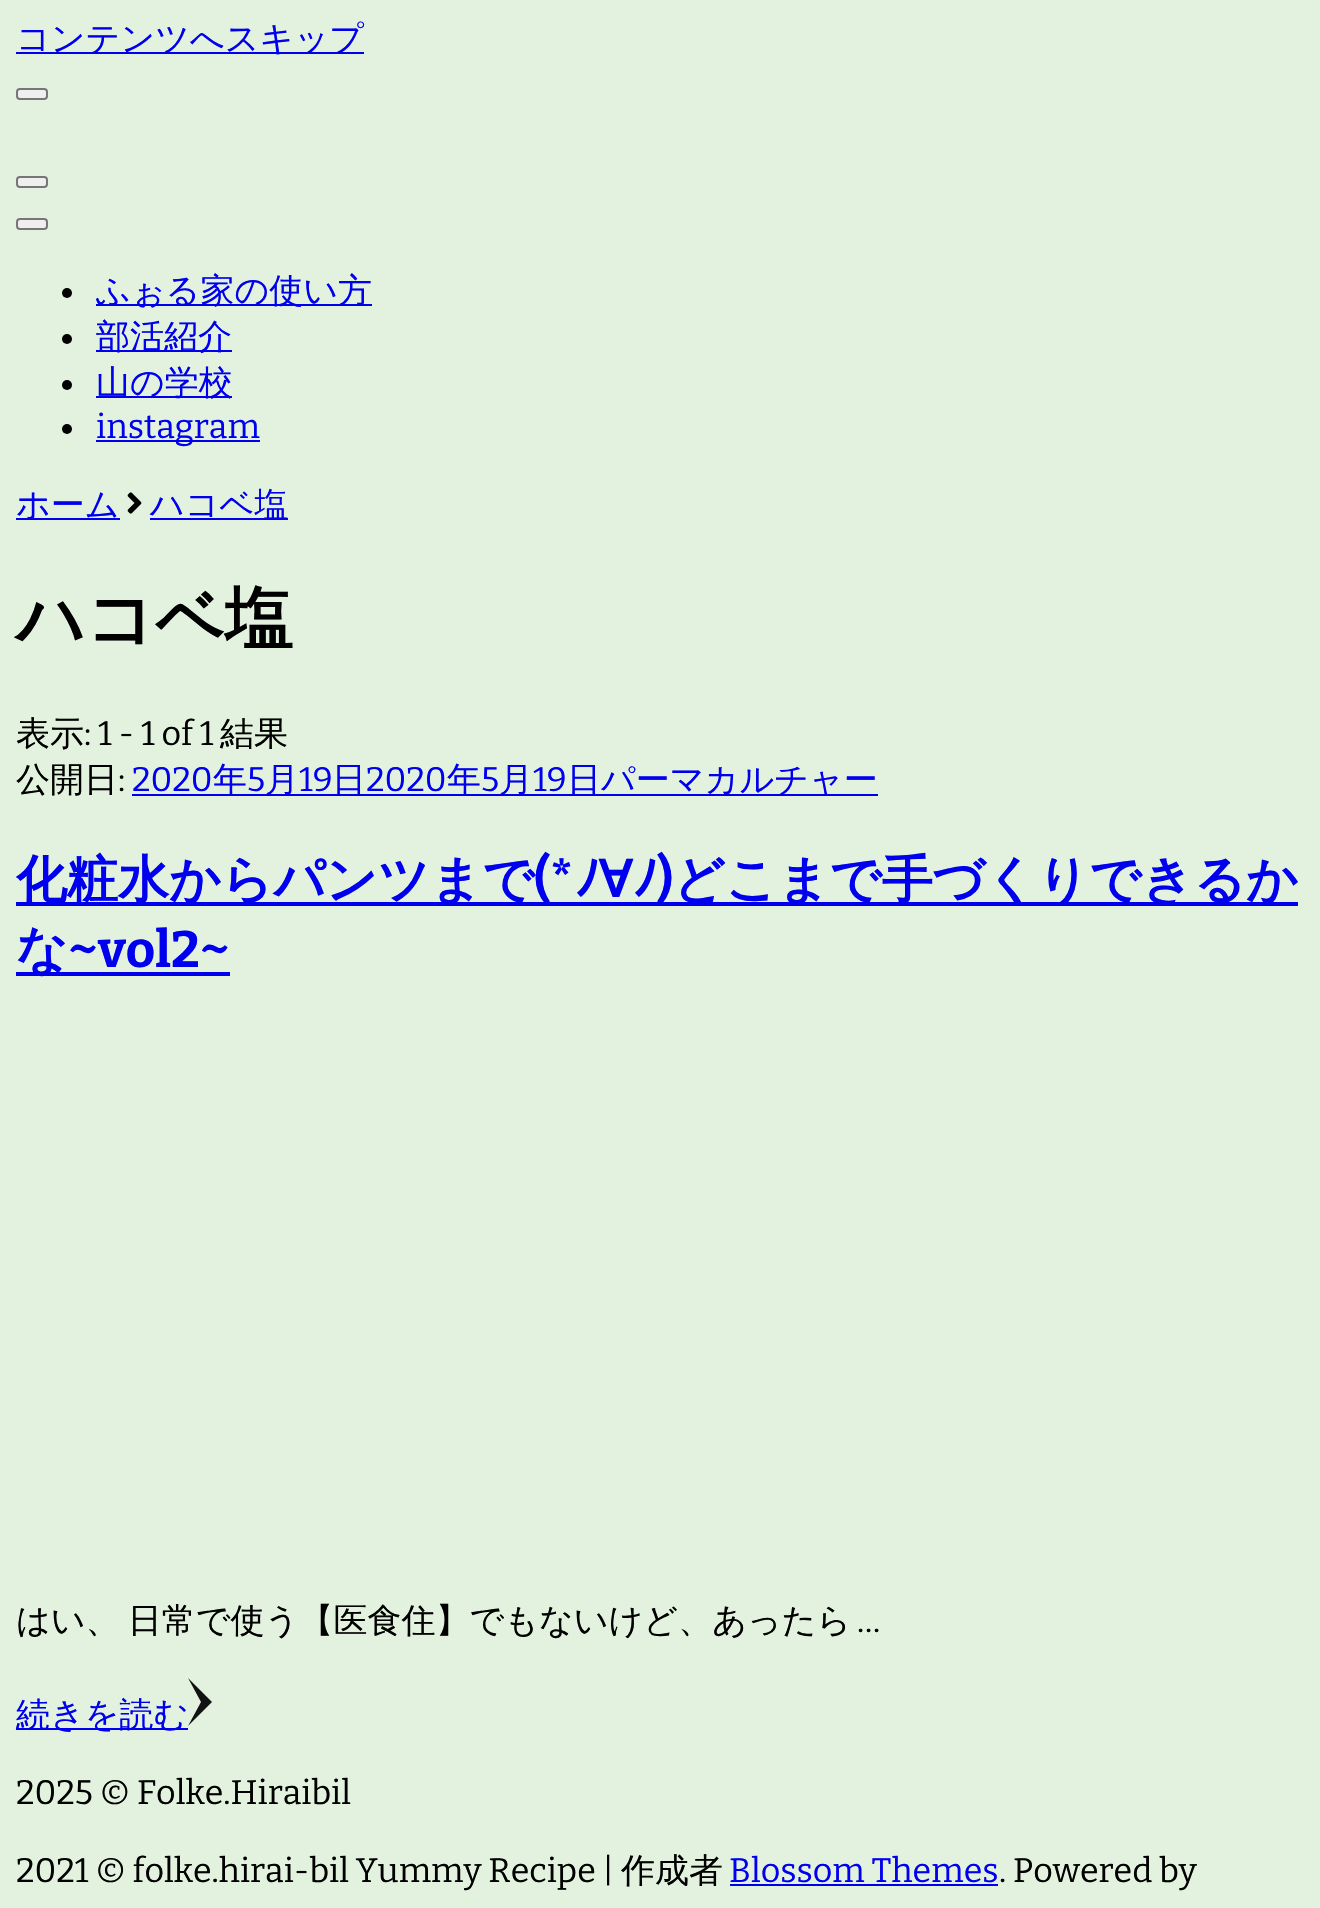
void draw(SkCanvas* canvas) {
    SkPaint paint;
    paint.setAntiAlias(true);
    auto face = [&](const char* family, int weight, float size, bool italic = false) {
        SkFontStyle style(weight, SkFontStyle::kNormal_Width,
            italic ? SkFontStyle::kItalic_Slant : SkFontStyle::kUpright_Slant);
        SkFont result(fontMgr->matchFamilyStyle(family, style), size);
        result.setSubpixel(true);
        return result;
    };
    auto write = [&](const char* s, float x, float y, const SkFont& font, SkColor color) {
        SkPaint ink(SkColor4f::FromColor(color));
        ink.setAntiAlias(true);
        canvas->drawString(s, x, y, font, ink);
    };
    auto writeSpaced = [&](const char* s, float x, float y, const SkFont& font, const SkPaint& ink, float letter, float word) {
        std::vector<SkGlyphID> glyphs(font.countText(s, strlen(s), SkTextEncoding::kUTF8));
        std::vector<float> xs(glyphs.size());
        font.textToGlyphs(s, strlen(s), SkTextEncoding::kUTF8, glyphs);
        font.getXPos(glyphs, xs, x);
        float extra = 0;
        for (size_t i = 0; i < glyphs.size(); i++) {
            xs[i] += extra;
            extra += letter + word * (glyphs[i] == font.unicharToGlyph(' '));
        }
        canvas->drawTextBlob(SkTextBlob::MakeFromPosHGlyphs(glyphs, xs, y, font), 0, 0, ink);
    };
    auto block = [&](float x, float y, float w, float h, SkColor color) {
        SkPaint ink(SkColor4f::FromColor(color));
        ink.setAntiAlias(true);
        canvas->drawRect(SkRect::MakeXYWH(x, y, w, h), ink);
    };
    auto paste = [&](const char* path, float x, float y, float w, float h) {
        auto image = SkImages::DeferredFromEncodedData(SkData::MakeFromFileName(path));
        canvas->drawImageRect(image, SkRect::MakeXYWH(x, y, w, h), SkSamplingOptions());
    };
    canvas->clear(SkColorSetRGB(226, 242, 222));
    block(16, 52, 348, 2, SkColorSetRGB(0, 0, 238));
    auto kFont1 = face("WenQuanYi Zen Hei", 500, 34);
    write("コンテンツへスキップ", 16, 50, kFont1, SkColorSetRGB(0, 0, 238));
    paint.setColor(SkColorSetRGB(239, 239, 239));
    canvas->drawRoundRect(SkRect::MakeXYWH(17, 89, 30, 10), 3, 3, paint);
    paint.setStyle(SkPaint::kStroke_Style);
    paint.setStrokeWidth(2);
    paint.setColor(SkColorSetRGB(118, 118, 118));
    canvas->drawRoundRect(SkRect::MakeXYWH(17, 89, 30, 10), 3, 3, paint);
    paint.setStyle(SkPaint::kFill_Style);
    paint.setColor(SkColorSetRGB(239, 239, 239));
    canvas->drawRoundRect(SkRect::MakeXYWH(17, 177, 30, 10), 3, 3, paint);
    paint.setStyle(SkPaint::kStroke_Style);
    paint.setColor(SkColorSetRGB(118, 118, 118));
    canvas->drawRoundRect(SkRect::MakeXYWH(17, 177, 30, 10), 3, 3, paint);
    paint.setStyle(SkPaint::kFill_Style);
    paint.setColor(SkColorSetRGB(239, 239, 239));
    canvas->drawRoundRect(SkRect::MakeXYWH(17, 219, 30, 10), 3, 3, paint);
    paint.setStyle(SkPaint::kStroke_Style);
    paint.setColor(SkColorSetRGB(118, 118, 118));
    canvas->drawRoundRect(SkRect::MakeXYWH(17, 219, 30, 10), 3, 3, paint);
    paint.setStyle(SkPaint::kFill_Style);
    paint.setColor(SK_ColorBLACK);
    canvas->drawCircle(67, 293, 5, paint);
    block(96, 304, 276, 2, SkColorSetRGB(0, 0, 238));
    write("ふぉる家の使い方", 96, 302, kFont1, SkColorSetRGB(0, 0, 238));
    canvas->drawCircle(67, 339, 5, paint);
    block(96, 350, 136, 2, SkColorSetRGB(0, 0, 238));
    write("部活紹介", 96, 348, kFont1, SkColorSetRGB(0, 0, 238));
    canvas->drawCircle(67, 385, 5, paint);
    block(96, 396, 136, 2, SkColorSetRGB(0, 0, 238));
    write("山の学校", 96, 394, kFont1, SkColorSetRGB(0, 0, 238));
    canvas->drawCircle(67, 429, 5, paint);
    block(96, 440, 164, 2, SkColorSetRGB(0, 0, 238));
    auto kFont2 = face("Bitter", 400, 34);
    write("instagram", 96, 438, kFont2, SkColorSetRGB(0, 0, 238));
    block(16, 518, 104, 2, SkColorSetRGB(0, 0, 238));
    write("ホーム", 16, 516, kFont1, SkColorSetRGB(0, 0, 238));
    paste("pic1.png", 127, 492, 15, 22);
    block(150, 518, 138, 2, SkColorSetRGB(0, 0, 238));
    write("ハコベ塩", 150, 516, kFont1, SkColorSetRGB(0, 0, 238));
    auto kFont3 = face("WenQuanYi Zen Hei", 700, 68);
    write("ハコベ塩", 16, 642, kFont3, SK_ColorBLACK);
    write("表示", 16, 745, kFont1, SK_ColorBLACK);
    write(": 1 - 1 of 1", 84, 745, kFont2, SK_ColorBLACK);
    write("結果", 220, 745, kFont1, SK_ColorBLACK);
    write("公開日", 16, 791, kFont1, SK_ColorBLACK);
    write(":", 118, 791, kFont2, SK_ColorBLACK);
    write("2020", 132, 791, kFont2, SkColorSetRGB(0, 0, 238));
    block(132, 794, 746, 2, SkColorSetRGB(0, 0, 238));
    write("年", 213, 791, kFont1, SkColorSetRGB(0, 0, 238));
    write("5", 247, 791, kFont2, SkColorSetRGB(0, 0, 238));
    write("月", 265, 791, kFont1, SkColorSetRGB(0, 0, 238));
    write("19", 299, 791, kFont2, SkColorSetRGB(0, 0, 238));
    write("日", 332, 791, kFont1, SkColorSetRGB(0, 0, 238));
    write("2020", 366, 791, kFont2, SkColorSetRGB(0, 0, 238));
    write("年", 447, 791, kFont1, SkColorSetRGB(0, 0, 238));
    write("5", 481, 791, kFont2, SkColorSetRGB(0, 0, 238));
    write("月", 499, 791, kFont1, SkColorSetRGB(0, 0, 238));
    write("19", 533, 791, kFont2, SkColorSetRGB(0, 0, 238));
    write("日パーマカルチャー", 567, 791, kFont1, SkColorSetRGB(0, 0, 238));
    block(16, 902, 1282, 4, SkColorSetRGB(0, 0, 238));
    auto kFont4 = face("WenQuanYi Zen Hei", 700, 51);
    write("化粧水からパンツまで", 16, 897, kFont4, SkColorSetRGB(0, 0, 238));
    auto kFont5 = face("Bitter", 700, 51);
    write("(*", 534, 897, kFont5, SkColorSetRGB(0, 0, 238));
    auto kFont6 = face("IPAPGothic", 700, 51);
    write("ﾉ", 574, 897, kFont6, SkColorSetRGB(0, 0, 238));
    write("∀", 599, 897, kFont4, SkColorSetRGB(0, 0, 238));
    write("ﾉ", 632, 897, kFont6, SkColorSetRGB(0, 0, 238));
    write(")", 657, 897, kFont5, SkColorSetRGB(0, 0, 238));
    write("どこまで手づくりできるか", 673, 897, kFont4, SkColorSetRGB(0, 0, 238));
    block(16, 972, 214, 4, SkColorSetRGB(0, 0, 238));
    write("な", 16, 967, kFont4, SkColorSetRGB(0, 0, 238));
    write("~vol2~", 68, 967, kFont5, SkColorSetRGB(0, 0, 238));
    writeSpaced("はい、 日常で使う【医食住】でもないけど、あったら", 16, 1632, kFont1, paint, 0, -2);
    write("…", 857, 1632, kFont2, SK_ColorBLACK);
    block(16, 1728, 172, 2, SkColorSetRGB(0, 0, 238));
    write("続きを読む", 16, 1726, kFont1, SkColorSetRGB(0, 0, 238));
    paint.setColor(SkColorSetRGB(18, 18, 18));
    canvas->drawPath(SkPathBuilder().moveTo(212, 1702).lineTo(188, 1726).lineTo(201, 1702).lineTo(188, 1678).close().detach(), paint);
    write("2025 © Folke.Hiraibil", 16, 1804, kFont2, SK_ColorBLACK);
    write("2021 © folke.hirai-bil Yummy Recipe |", 16, 1882, kFont2, SK_ColorBLACK);
    write("作成者", 621, 1882, kFont1, SK_ColorBLACK);
    write("Blossom Themes", 729, 1882, kFont2, SkColorSetRGB(0, 0, 238));
    block(730, 1884, 268, 2, SkColorSetRGB(0, 0, 238));
    write(". Powered by", 999, 1882, kFont2, SK_ColorBLACK);
}
